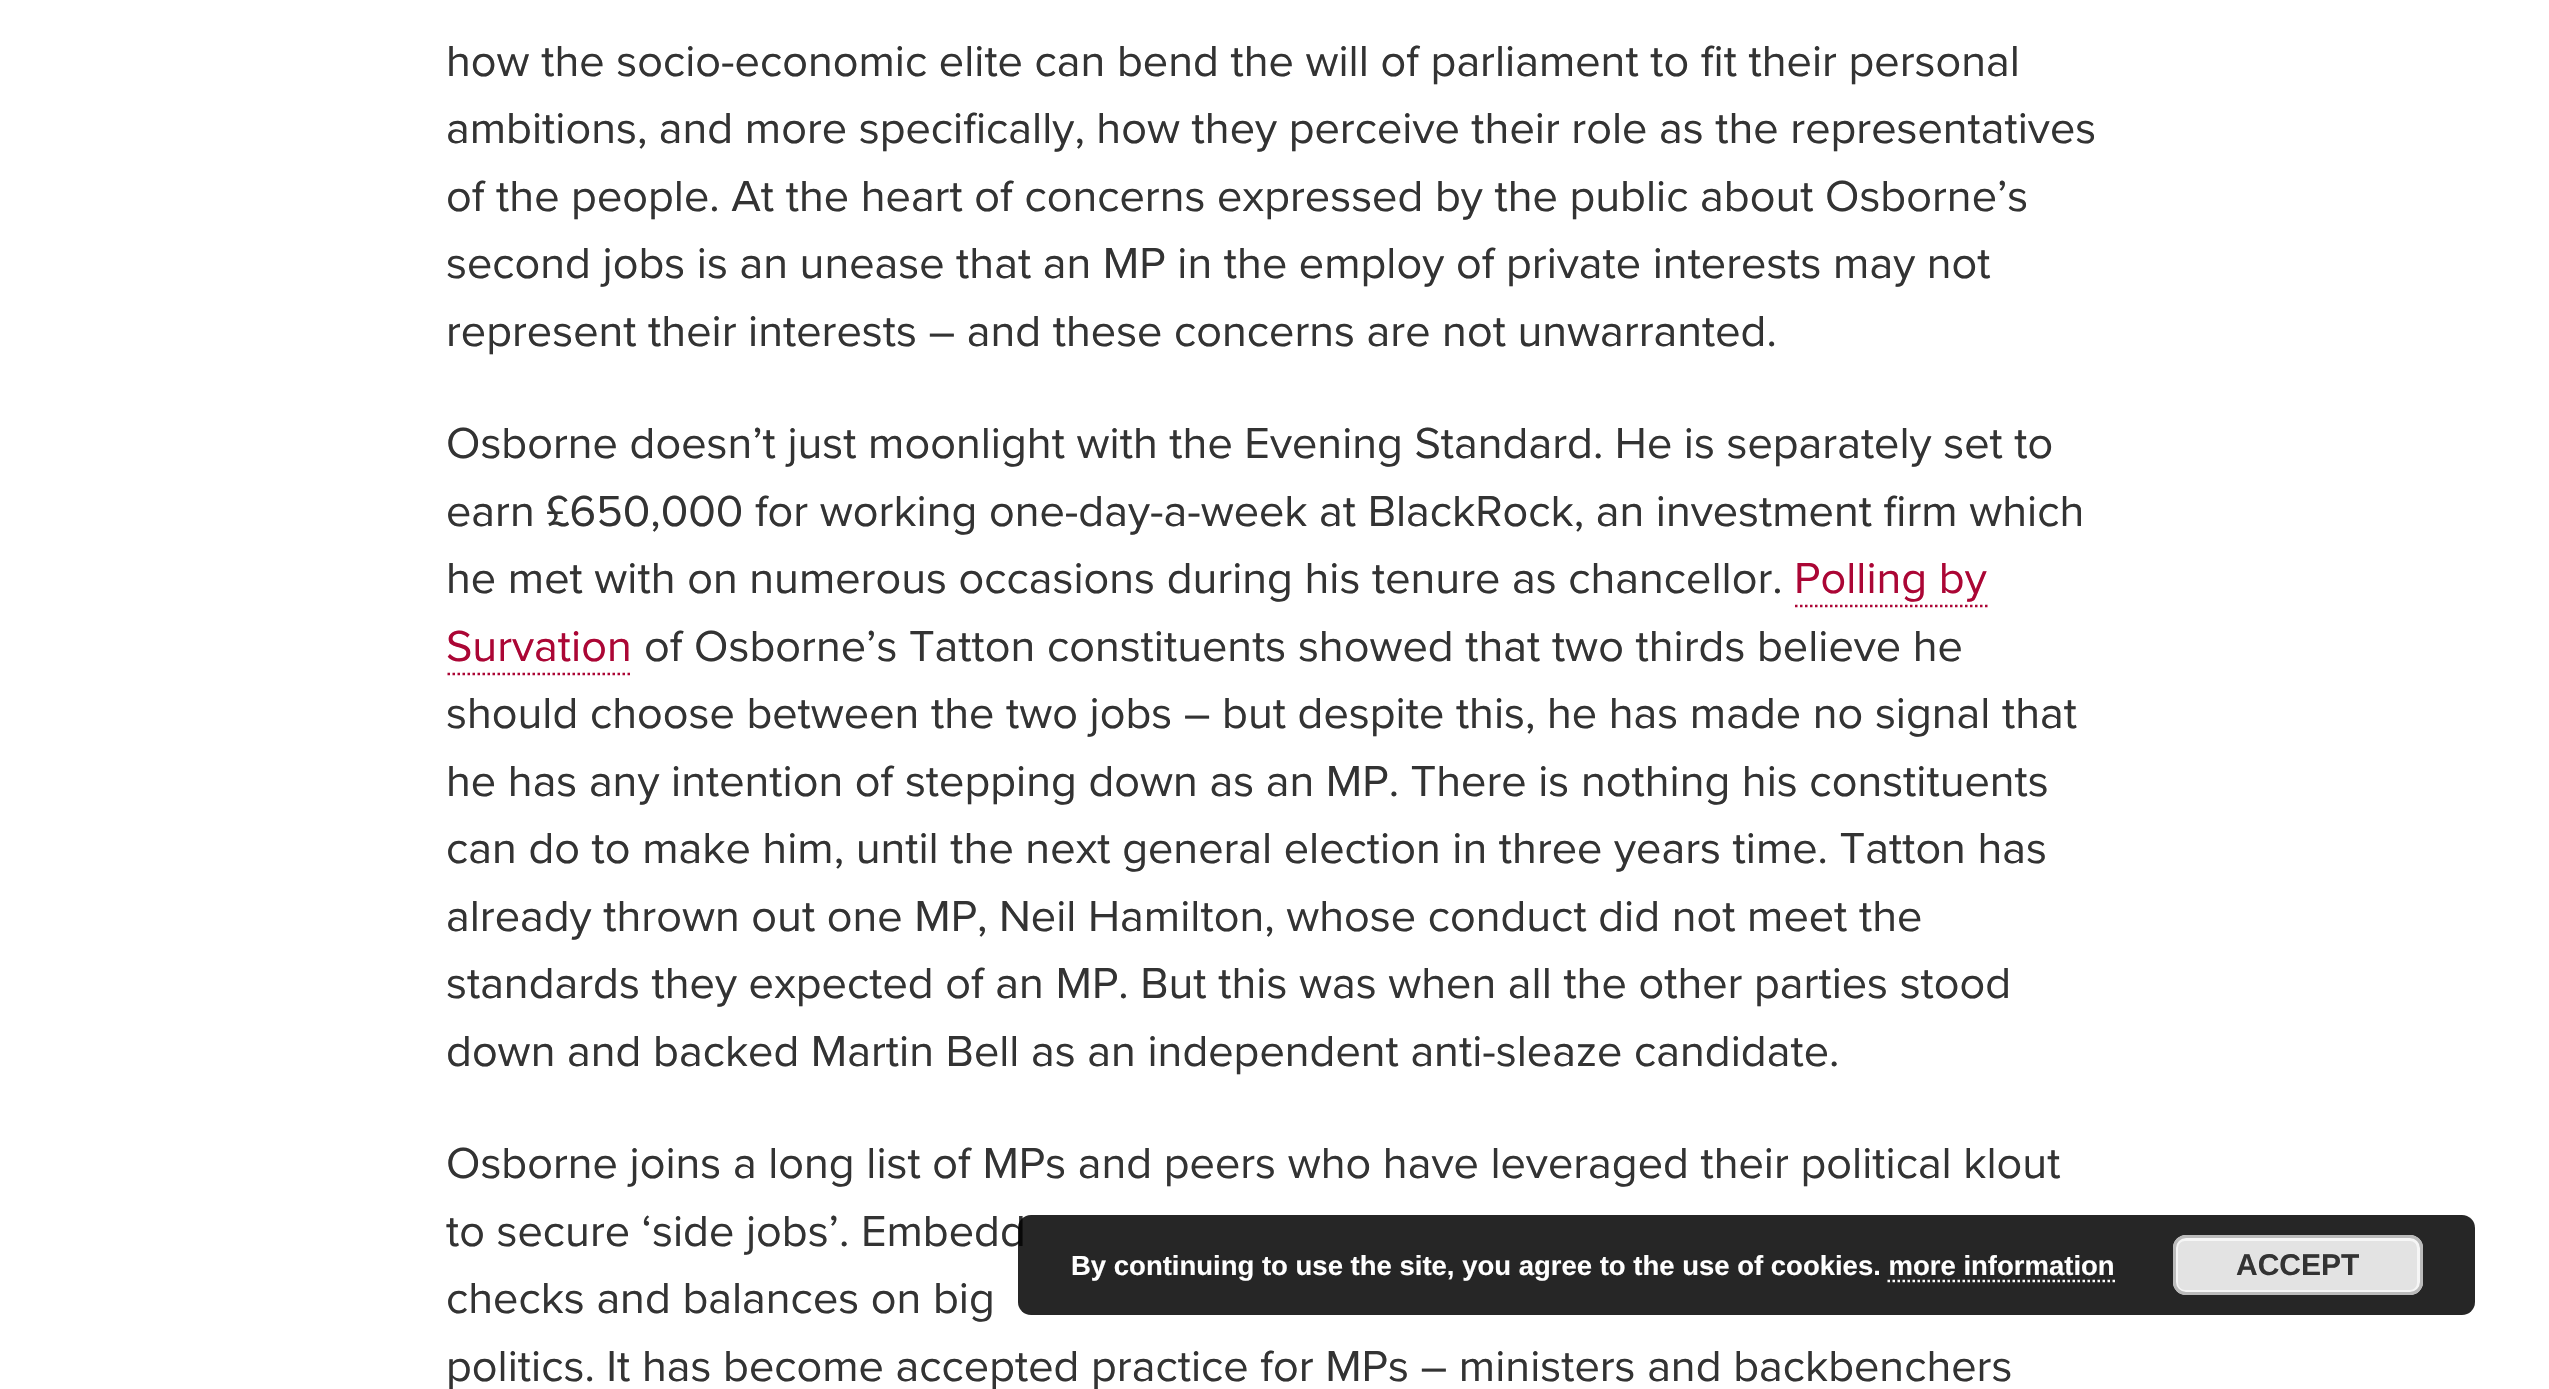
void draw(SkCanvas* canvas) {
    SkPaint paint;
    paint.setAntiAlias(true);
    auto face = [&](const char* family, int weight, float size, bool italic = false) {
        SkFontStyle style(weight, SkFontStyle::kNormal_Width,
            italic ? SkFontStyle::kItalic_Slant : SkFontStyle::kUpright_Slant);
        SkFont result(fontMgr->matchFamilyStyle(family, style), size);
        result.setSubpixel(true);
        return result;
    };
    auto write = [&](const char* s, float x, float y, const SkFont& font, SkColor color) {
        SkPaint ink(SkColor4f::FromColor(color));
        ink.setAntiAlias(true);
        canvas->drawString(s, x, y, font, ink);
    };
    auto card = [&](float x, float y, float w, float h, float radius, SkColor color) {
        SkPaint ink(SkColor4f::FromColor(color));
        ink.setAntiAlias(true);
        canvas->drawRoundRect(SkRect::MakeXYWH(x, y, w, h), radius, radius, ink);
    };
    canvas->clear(SK_ColorWHITE);
    auto kFont1 = face("Proxima Nova", 400, 45);
    write("how the socio-economic elite can bend the will of parliament to fit their personal", 446, 76, kFont1, SkColorSetRGB(51, 51, 51));
    write("ambitions, and more specifically, how they perceive their role as the representatives", 446, 143, kFont1, SkColorSetRGB(51, 51, 51));
    write("of the people. At the heart of concerns expressed by the public about Osborne’s", 446, 211, kFont1, SkColorSetRGB(51, 51, 51));
    write("second jobs is an unease that an MP in the employ of private interests may not", 446, 278, kFont1, SkColorSetRGB(51, 51, 51));
    write("represent their interests – and these concerns are not unwarranted.", 446, 346, kFont1, SkColorSetRGB(51, 51, 51));
    write("Osborne doesn’t just moonlight with the Evening Standard. He is separately set to", 446, 458, kFont1, SkColorSetRGB(51, 51, 51));
    write("earn £650,000 for working one-day-a-week at BlackRock, an investment firm which", 446, 526, kFont1, SkColorSetRGB(51, 51, 51));
    write("he met with on numerous occasions during his tenure as chancellor.", 446, 593, kFont1, SkColorSetRGB(51, 51, 51));
    write("Polling by", 1794, 593, kFont1, SkColorSetRGB(171, 6, 53));
    paint.setStyle(SkPaint::kStroke_Style);
    paint.setStrokeWidth(2.5f);
    paint.setColor(SkColorSetRGB(171, 6, 53));
    paint.setPathEffect(SkDashPathEffect::Make({{2.5f, 2.5f}}, 0));
    canvas->drawPath(SkPathBuilder().moveTo(1795, 606).lineTo(1820, 606).detach(), paint);
    paint.setPathEffect(nullptr);
    write("Survation", 446, 661, kFont1, SkColorSetRGB(171, 6, 53));
    paint.setPathEffect(SkDashPathEffect::Make({{2.5f, 2.5f}}, 0));
    canvas->drawPath(SkPathBuilder().moveTo(1820, 606).lineTo(1987.5f, 606).detach(), paint);
    paint.setPathEffect(nullptr);
    paint.setPathEffect(SkDashPathEffect::Make({{2.5f, 2.5f}}, 0));
    canvas->drawPath(SkPathBuilder().moveTo(447.5f, 674).lineTo(632.5f, 674).detach(), paint);
    paint.setPathEffect(nullptr);
    write("of Osborne’s Tatton constituents showed that two thirds believe he", 644, 661, kFont1, SkColorSetRGB(51, 51, 51));
    write("should choose between the two jobs – but despite this, he has made no signal that", 446, 728, kFont1, SkColorSetRGB(51, 51, 51));
    write("he has any intention of stepping down as an MP. There is nothing his constituents", 446, 796, kFont1, SkColorSetRGB(51, 51, 51));
    write("can do to make him, until the next general election in three years time. Tatton has", 446, 863, kFont1, SkColorSetRGB(51, 51, 51));
    write("already thrown out one MP, Neil Hamilton, whose conduct did not meet the", 446, 931, kFont1, SkColorSetRGB(51, 51, 51));
    write("standards they expected of an MP. But this was when all the other parties stood", 446, 998, kFont1, SkColorSetRGB(51, 51, 51));
    write("down and backed Martin Bell as an independent anti-sleaze candidate.", 446, 1066, kFont1, SkColorSetRGB(51, 51, 51));
    write("Osborne joins a long list of MPs and peers who have leveraged their political klout", 446, 1178, kFont1, SkColorSetRGB(51, 51, 51));
    write("to secure ‘side jobs’. Embedd", 446, 1246, kFont1, SkColorSetRGB(51, 51, 51));
    write("checks and balances on big", 446, 1313, kFont1, SkColorSetRGB(51, 51, 51));
    write("politics. It has become accepted practice for MPs – ministers and backbenchers", 446, 1381, kFont1, SkColorSetRGB(51, 51, 51));
    card(1018, 1215, 1457, 100, 13, SkColorSetARGB(217, 0, 0, 0));
    auto kFont2 = face("Liberation Sans", 700, 27.5f);
    write("By continuing to use the site, you agree to the use of cookies. more information", 1071, 1275, kFont2, SK_ColorWHITE);
    card(2173, 1235, 250, 60, 13, SkColorSetRGB(227, 227, 227));
    paint.setStrokeWidth(3);
    paint.setColor(SkColorSetRGB(246, 246, 246));
    canvas->drawRoundRect(SkRect::MakeXYWH(2176.5f, 1239.5f, 242, 52), 8.5f, 8.5f, paint);
    paint.setColor(SkColorSetRGB(187, 187, 187));
    canvas->drawRoundRect(SkRect::MakeXYWH(2174.5f, 1236.5f, 247, 57), 11.5f, 11.5f, paint);
    auto kFont3 = face("Liberation Sans", 700, 30);
    write("ACCEPT", 2236, 1275, kFont3, SkColorSetRGB(51, 51, 51));
    paint.setStrokeWidth(2.5f);
    paint.setColor(SK_ColorWHITE);
    paint.setPathEffect(SkDashPathEffect::Make({{2.5f, 2.5f}}, 0));
    canvas->drawPath(SkPathBuilder().moveTo(1887.5f, 1281).lineTo(2115, 1281).detach(), paint);
    paint.setPathEffect(nullptr);
}
